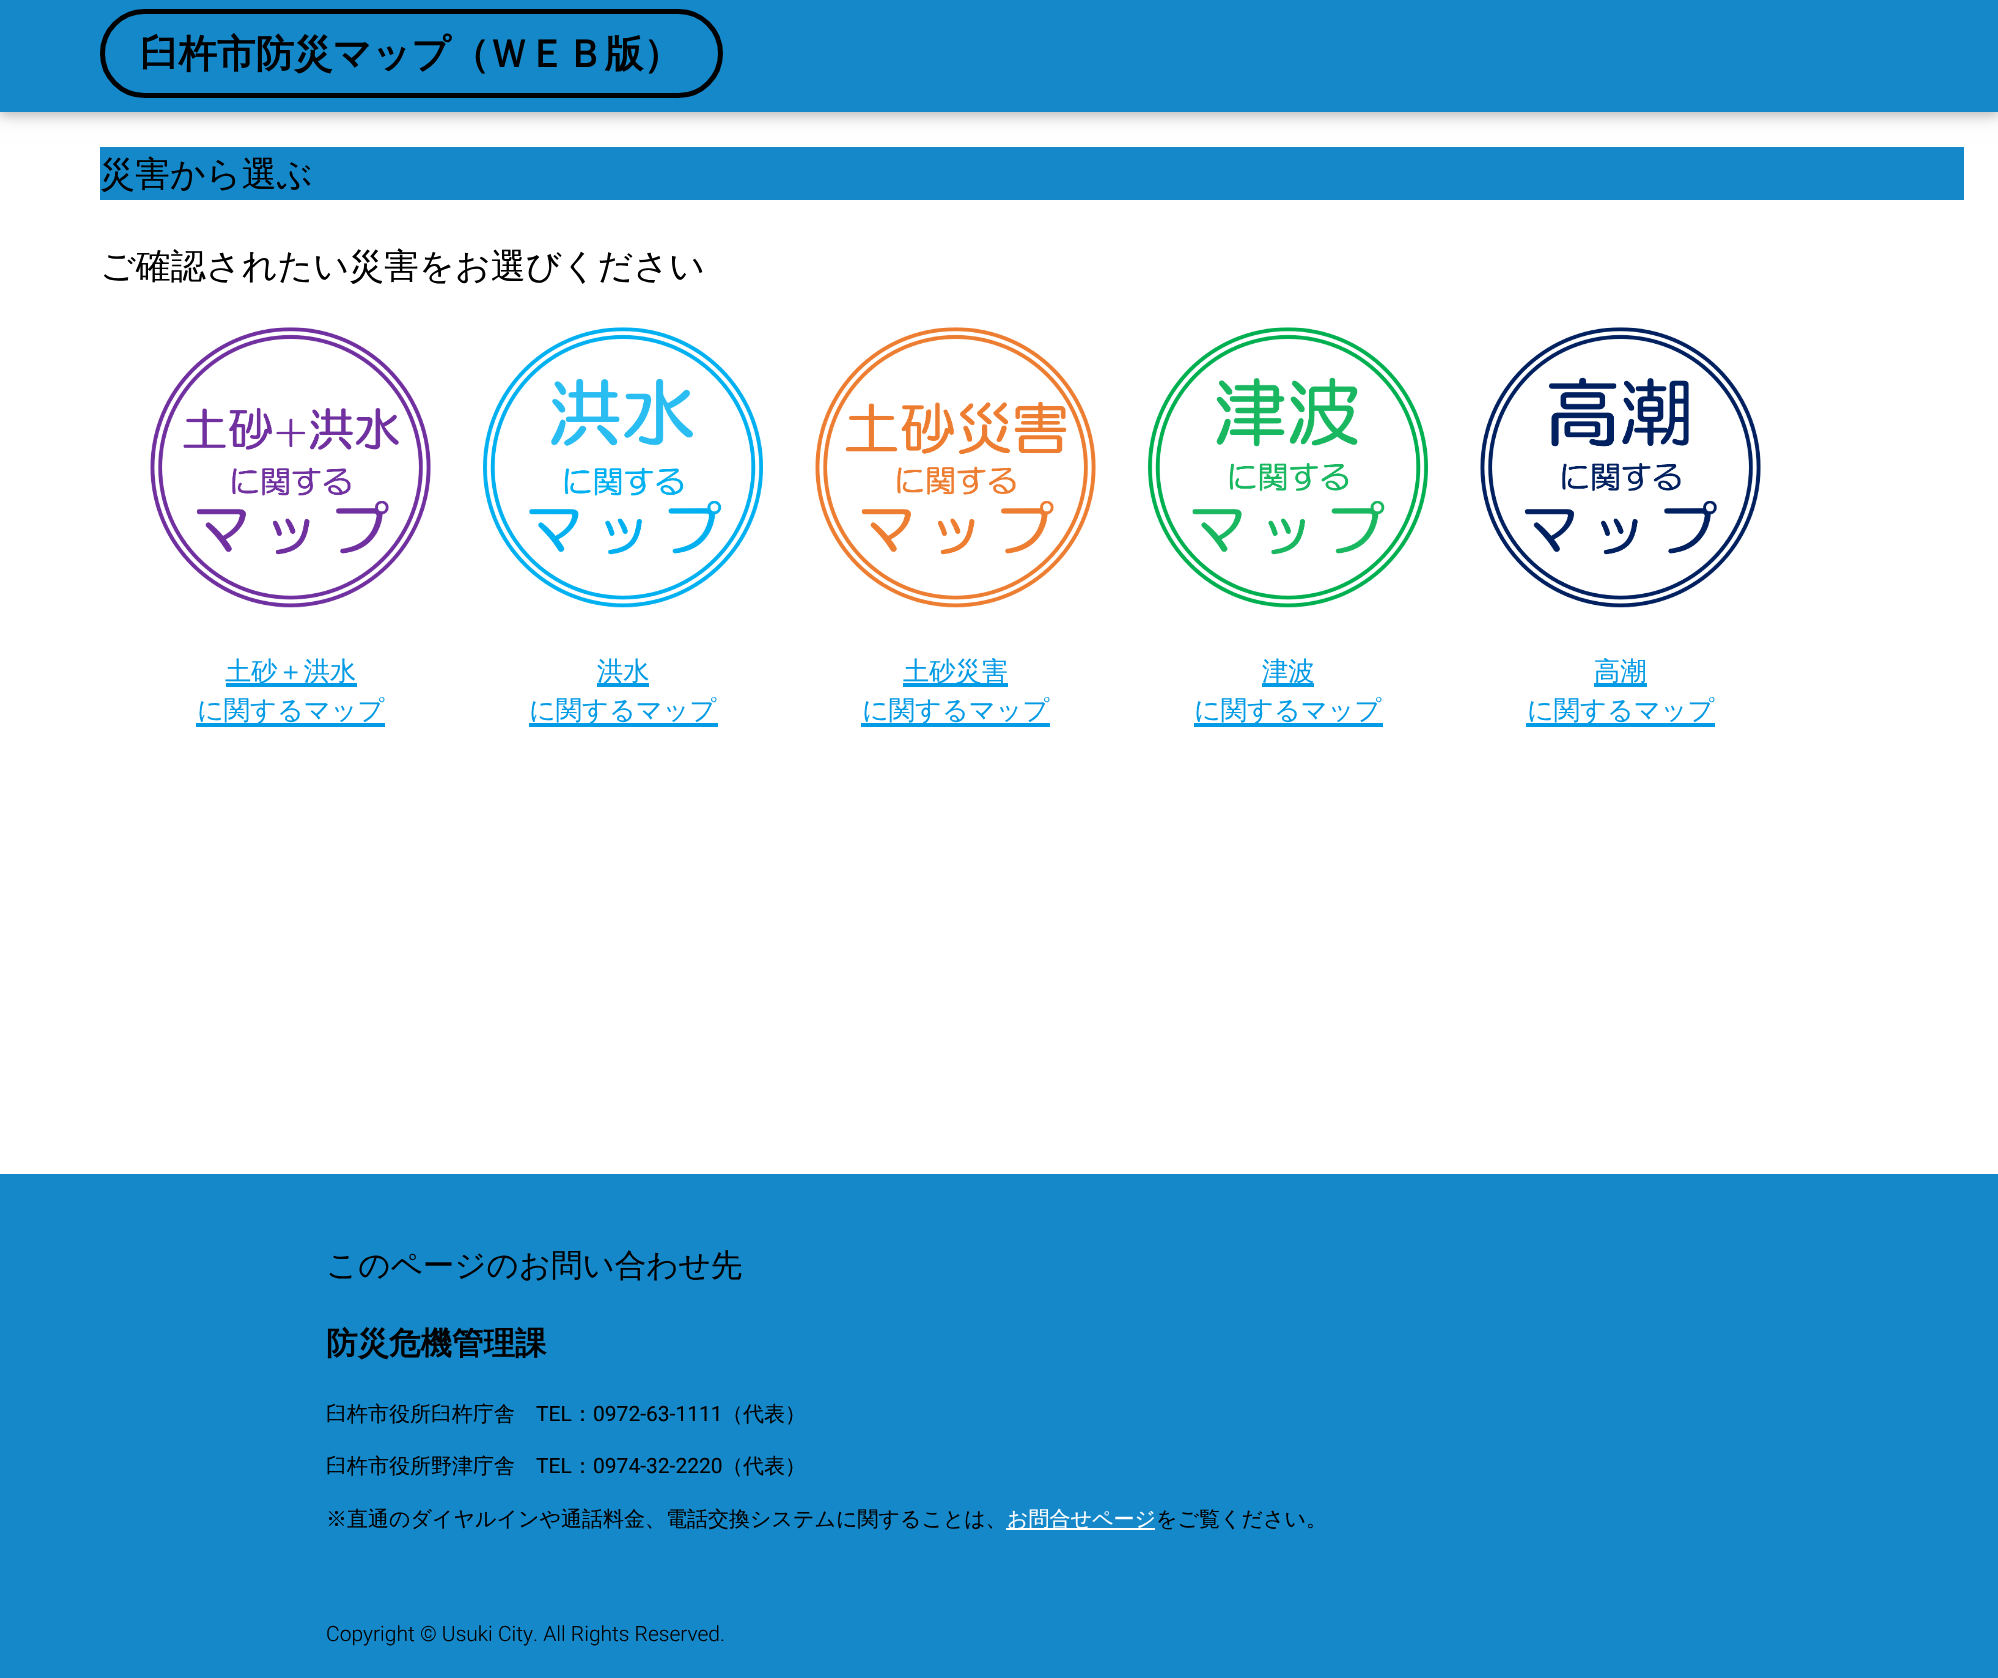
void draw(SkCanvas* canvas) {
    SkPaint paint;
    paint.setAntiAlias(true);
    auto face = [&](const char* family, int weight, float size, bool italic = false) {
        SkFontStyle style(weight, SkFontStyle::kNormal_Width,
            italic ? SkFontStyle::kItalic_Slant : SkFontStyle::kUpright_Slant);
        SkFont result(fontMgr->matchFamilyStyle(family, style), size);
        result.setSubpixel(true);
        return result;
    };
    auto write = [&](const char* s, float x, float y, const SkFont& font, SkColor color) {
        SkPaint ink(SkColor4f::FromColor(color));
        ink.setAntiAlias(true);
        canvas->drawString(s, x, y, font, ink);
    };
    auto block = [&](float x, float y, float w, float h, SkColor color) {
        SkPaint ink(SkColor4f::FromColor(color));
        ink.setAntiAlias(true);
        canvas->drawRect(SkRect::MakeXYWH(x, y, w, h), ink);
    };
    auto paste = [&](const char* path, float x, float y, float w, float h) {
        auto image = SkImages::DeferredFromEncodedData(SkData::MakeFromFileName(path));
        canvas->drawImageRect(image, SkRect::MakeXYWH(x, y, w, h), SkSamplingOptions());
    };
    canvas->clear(SK_ColorWHITE);
    paint.setColor(SkColorSetARGB(31, 0, 0, 0));
    paint.setMaskFilter(SkMaskFilter::MakeBlur(kNormal_SkBlurStyle, 9));
    canvas->drawRect(SkRect::MakeXYWH(0, 4, 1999, 112), paint);
    paint.setMaskFilter(nullptr);
    paint.setColor(SkColorSetARGB(41, 0, 0, 0));
    paint.setMaskFilter(SkMaskFilter::MakeBlur(kNormal_SkBlurStyle, 4.5f));
    canvas->drawRect(SkRect::MakeXYWH(0, 4, 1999, 112), paint);
    paint.setMaskFilter(nullptr);
    block(0, 0, 1998, 112, SkColorSetRGB(21, 136, 202));
    paint.setStyle(SkPaint::kStroke_Style);
    paint.setStrokeWidth(5);
    paint.setColor(SK_ColorBLACK);
    canvas->drawRoundRect(SkRect::MakeXYWH(102.5f, 11.5f, 618, 84), 42, 42, paint);
    auto kFont1 = face("WenQuanYi Zen Hei", 700, 38.5f);
    write("臼杵市防災マップ（ＷＥＢ版）", 140, 67, kFont1, SK_ColorBLACK);
    block(100, 147, 1864, 53, SkColorSetRGB(21, 136, 202));
    auto kFont2 = face("WenQuanYi Zen Hei", 500, 35);
    write("災害から選ぶ", 100, 186, kFont2, SK_ColorBLACK);
    write("ご確認されたい災害をお選びください", 100, 278, kFont2, SK_ColorBLACK);
    paste("pic1.png", 150, 327, 281, 281);
    block(226, 683, 131, 4, SkColorSetRGB(3, 155, 229));
    auto kFont3 = face("WenQuanYi Zen Hei", 500, 26.25f);
    write("土砂＋洪水", 225, 680, kFont3, SkColorSetRGB(3, 155, 229));
    block(196, 723, 189, 4, SkColorSetRGB(3, 155, 229));
    write("に関するマップ", 197, 719, kFont3, SkColorSetRGB(3, 155, 229));
    paste("pic2.png", 483, 327, 280, 281);
    block(597, 683, 52, 4, SkColorSetRGB(3, 155, 229));
    write("洪水", 597, 680, kFont3, SkColorSetRGB(3, 155, 229));
    block(529, 723, 189, 4, SkColorSetRGB(3, 155, 229));
    write("に関するマップ", 529, 719, kFont3, SkColorSetRGB(3, 155, 229));
    paste("pic3.png", 815, 327, 281, 281);
    block(903, 683, 105, 4, SkColorSetRGB(3, 155, 229));
    write("土砂災害", 903, 680, kFont3, SkColorSetRGB(3, 155, 229));
    block(861, 723, 189, 4, SkColorSetRGB(3, 155, 229));
    write("に関するマップ", 862, 719, kFont3, SkColorSetRGB(3, 155, 229));
    paste("pic4.png", 1148, 327, 280, 281);
    block(1262, 683, 52, 4, SkColorSetRGB(3, 155, 229));
    write("津波", 1262, 680, kFont3, SkColorSetRGB(3, 155, 229));
    block(1194, 723, 189, 4, SkColorSetRGB(3, 155, 229));
    write("に関するマップ", 1194, 719, kFont3, SkColorSetRGB(3, 155, 229));
    paste("pic5.png", 1480, 327, 281, 281);
    block(1594, 683, 53, 4, SkColorSetRGB(3, 155, 229));
    write("高潮", 1594, 680, kFont3, SkColorSetRGB(3, 155, 229));
    block(1526, 723, 189, 4, SkColorSetRGB(3, 155, 229));
    write("に関するマップ", 1527, 719, kFont3, SkColorSetRGB(3, 155, 229));
    block(0, 1174, 1998, 504, SkColorSetRGB(21, 136, 202));
    auto kFont4 = face("WenQuanYi Zen Hei", 500, 31.5f);
    write("このページのお問い合わせ先", 326, 1276, kFont4, SK_ColorBLACK);
    auto kFont5 = face("WenQuanYi Zen Hei", 700, 31.5f);
    write("防災危機管理課", 326, 1354, kFont5, SK_ColorBLACK);
    auto kFont6 = face("WenQuanYi Zen Hei", 500, 21);
    write("臼杵市役所臼杵庁舎", 326, 1421, kFont6, SK_ColorBLACK);
    auto kFont7 = face("Roboto", 400, 21);
    write("TEL", 536, 1421, kFont7, SK_ColorBLACK);
    write("：", 572, 1421, kFont6, SK_ColorBLACK);
    write("0972-63-1111", 593, 1421, kFont7, SK_ColorBLACK);
    write("（代表）", 722, 1421, kFont6, SK_ColorBLACK);
    write("臼杵市役所野津庁舎", 326, 1473, kFont6, SK_ColorBLACK);
    write("TEL", 536, 1473, kFont7, SK_ColorBLACK);
    write("：", 572, 1473, kFont6, SK_ColorBLACK);
    write("0974-32-2220", 593, 1473, kFont7, SK_ColorBLACK);
    write("（代表）", 722, 1473, kFont6, SK_ColorBLACK);
    write("※直通のダイヤルインや通話料金、電話交換システムに関することは、", 326, 1526, kFont6, SK_ColorBLACK);
    block(1006, 1528, 149, 2, SK_ColorWHITE);
    write("お問合せページ", 1007, 1526, kFont6, SK_ColorWHITE);
    write("をご覧ください。", 1156, 1526, kFont6, SK_ColorBLACK);
    auto kFont8 = face("Roboto", 300, 21);
    write("Copyright © Usuki City. All Rights Reserved.", 326, 1641, kFont8, SK_ColorBLACK);
}
